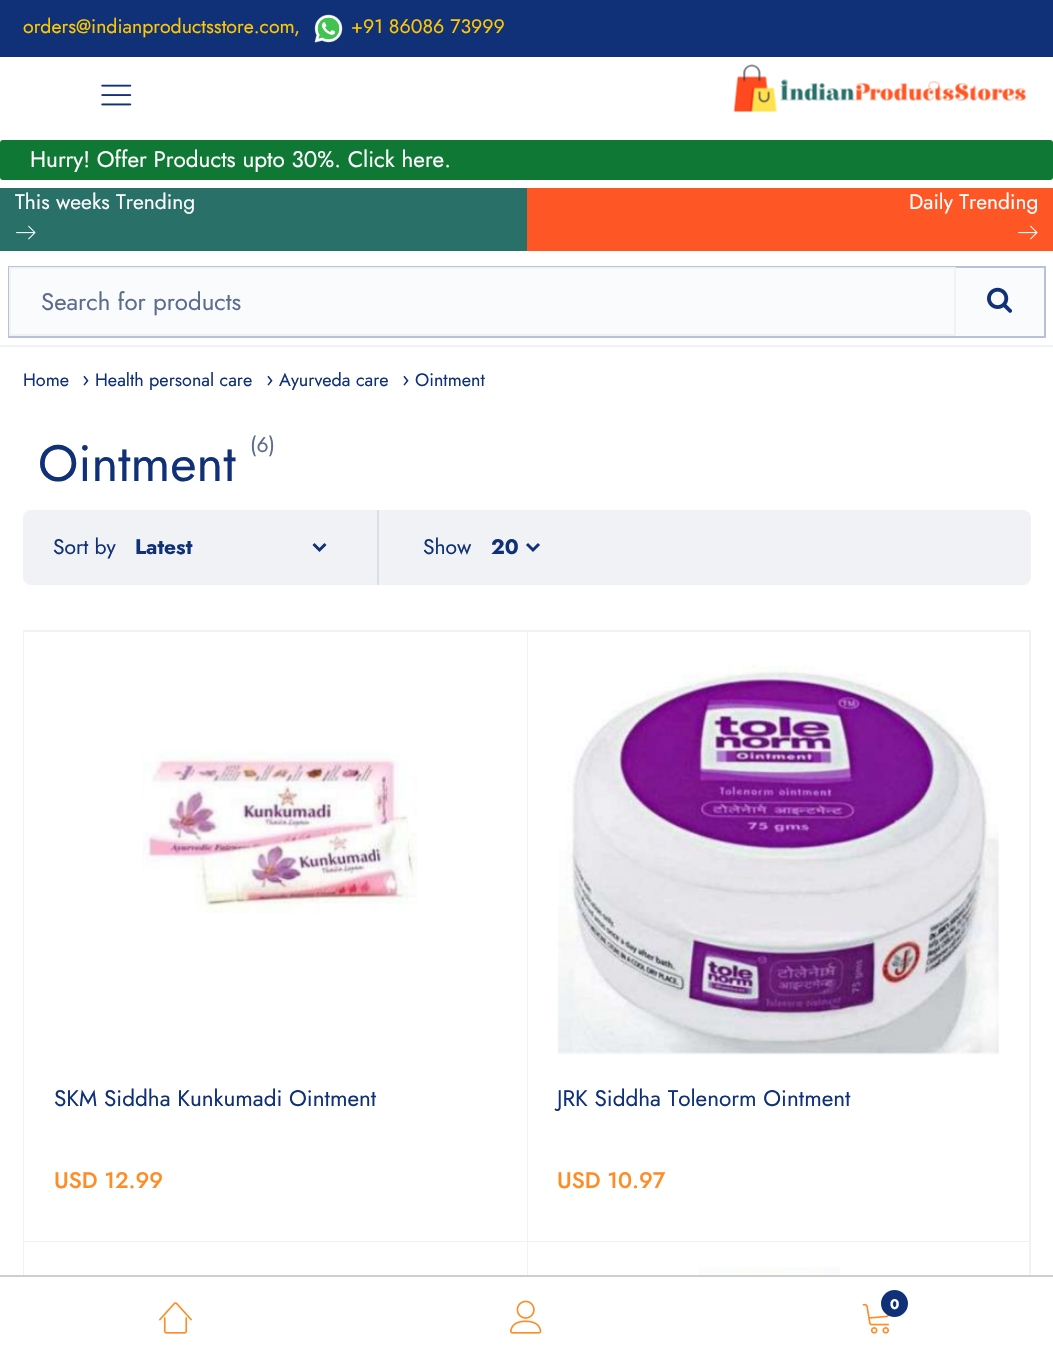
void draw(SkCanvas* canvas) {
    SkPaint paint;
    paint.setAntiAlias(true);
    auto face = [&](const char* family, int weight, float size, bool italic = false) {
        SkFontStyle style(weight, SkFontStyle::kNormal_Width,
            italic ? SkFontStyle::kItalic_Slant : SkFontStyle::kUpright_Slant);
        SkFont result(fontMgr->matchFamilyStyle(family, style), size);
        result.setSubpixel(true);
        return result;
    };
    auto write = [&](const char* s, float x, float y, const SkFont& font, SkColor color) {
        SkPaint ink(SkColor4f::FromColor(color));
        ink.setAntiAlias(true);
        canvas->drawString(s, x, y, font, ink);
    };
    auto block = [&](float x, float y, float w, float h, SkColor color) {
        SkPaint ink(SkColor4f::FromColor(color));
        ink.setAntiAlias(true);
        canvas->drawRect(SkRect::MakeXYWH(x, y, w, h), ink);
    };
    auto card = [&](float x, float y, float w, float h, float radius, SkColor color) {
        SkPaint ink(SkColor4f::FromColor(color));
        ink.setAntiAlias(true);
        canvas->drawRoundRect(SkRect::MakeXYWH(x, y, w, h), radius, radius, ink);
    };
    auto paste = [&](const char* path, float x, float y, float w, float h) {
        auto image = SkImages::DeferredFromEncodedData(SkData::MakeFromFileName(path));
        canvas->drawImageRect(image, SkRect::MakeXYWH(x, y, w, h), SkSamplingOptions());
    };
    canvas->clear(SK_ColorWHITE);
    block(0, 345, 1053, 2, SkColorSetRGB(240, 242, 245));
    block(0, 0, 1053, 57, SkColorSetRGB(16, 49, 120));
    auto kFont1 = face("Jost", 400, 19.5f);
    write("orders@indianproductsstore.com", 23, 33, kFont1, SkColorSetRGB(255, 200, 0));
    write(",", 294, 33, kFont1, SkColorSetRGB(255, 200, 0));
    paste("pic1.png", 314, 14, 29, 29);
    write("+91 86086 73999", 351, 33, kFont1, SkColorSetRGB(255, 200, 0));
    paste("pic2.png", 101, 84, 31, 22);
    paste("pic3.png", 733, 64, 293, 49);
    card(0, 140, 1053, 40, 3, SkColorSetRGB(16, 120, 53));
    auto kFont2 = face("Jost", 400, 22.5f);
    write("Hurry! Offer Products upto 30%. Click here.", 30, 167, kFont2, SK_ColorWHITE);
    block(0, 188, 527, 63, SkColorSetRGB(41, 112, 104));
    auto kFont3 = face("Jost", 400, 21);
    write("This weeks Trending", 15, 209, kFont3, SK_ColorWHITE);
    paste("pic4.png", 16, 225, 20, 15);
    block(527, 188, 526, 63, SkColorSetRGB(255, 86, 38));
    write("Daily Trending", 909, 209, kFont3, SK_ColorWHITE);
    paste("pic5.png", 1018, 225, 20, 15);
    block(11, 268, 1033, 68, SkColorSetRGB(250, 251, 252));
    paint.setStyle(SkPaint::kStroke_Style);
    paint.setStrokeWidth(2);
    paint.setColor(SkColorSetRGB(184, 194, 215));
    canvas->drawRect(SkRect::MakeXYWH(9, 267, 1036, 70), paint);
    paint.setColor(SkColorSetRGB(240, 242, 245));
    canvas->drawRect(SkRect::MakeXYWH(10, 268, 945, 67), paint);
    auto kFont4 = face("Jost", 400, 24);
    write("Search for products", 41, 310, kFont4, SkColorSetRGB(91, 108, 143));
    paste("pic6.png", 987, 287, 25, 26);
    auto kFont5 = face("Jost", 400, 18);
    write("Home", 23, 386, kFont5, SkColorSetRGB(16, 49, 120));
    write("›", 82, 386, kFont3, SkColorSetRGB(16, 49, 120));
    write("Health personal care", 95, 386, kFont5, SkColorSetRGB(16, 49, 120));
    write("›", 266, 386, kFont3, SkColorSetRGB(16, 49, 120));
    write("Ayurveda care", 279, 386, kFont5, SkColorSetRGB(16, 49, 120));
    write("›", 402, 386, kFont3, SkColorSetRGB(16, 49, 120));
    write("Ointment", 415, 386, kFont5, SkColorSetRGB(16, 49, 120));
    auto kFont6 = face("Jost", 400, 51);
    write("Ointment", 38, 481, kFont6, SkColorSetRGB(16, 49, 120));
    write("(6)", 250, 452, kFont3, SkColorSetRGB(91, 108, 143));
    card(23, 510, 1008, 75, 8, SkColorSetRGB(240, 242, 245));
    write("Sort by", 53, 554, kFont3, SkColorSetRGB(16, 49, 120));
    paint.setStrokeWidth(3);
    paint.setColor(SkColorSetRGB(16, 49, 120));
    canvas->drawPath(SkPathBuilder().moveTo(313.5f, 544).lineTo(319.5f, 550).lineTo(325.5f, 544).detach(), paint);
    auto kFont7 = face("Jost", 700, 21);
    write("Latest", 135, 554, kFont7, SkColorSetRGB(16, 49, 120));
    block(377, 510, 2, 75, SkColorSetRGB(217, 222, 232));
    write("Show", 423, 554, kFont3, SkColorSetRGB(16, 49, 120));
    canvas->drawPath(SkPathBuilder().moveTo(527, 544).lineTo(533, 550).lineTo(539, 544).detach(), paint);
    write("20", 491, 554, kFont7, SkColorSetRGB(16, 49, 120));
    block(23, 630, 1008, 2, SkColorSetRGB(240, 242, 245));
    block(23, 630, 2, 645, SkColorSetRGB(240, 242, 245));
    block(24, 632, 1, 609, SK_ColorWHITE);
    block(527, 632, 1, 643, SkColorSetRGB(240, 242, 245));
    block(24, 1241, 504, 1, SkColorSetRGB(240, 242, 245));
    paste("pic7.png", 142, 751, 276, 163);
    write("SKM Siddha Kunkumadi Ointment", 54, 1106, kFont2, SkColorSetRGB(16, 49, 120));
    auto kFont8 = face("Jost", 500, 22.5f);
    write("USD 12.99", 54, 1188, kFont8, SkColorSetRGB(253, 141, 39));
    block(1029, 632, 2, 643, SkColorSetRGB(240, 242, 245));
    block(528, 1241, 503, 1, SkColorSetRGB(240, 242, 245));
    paste("pic8.png", 557, 665, 442, 390);
    write("JRK Siddha Tolenorm Ointment", 557, 1106, kFont2, SkColorSetRGB(16, 49, 120));
    write("USD 10.97", 557, 1188, kFont8, SkColorSetRGB(253, 141, 39));
    block(24, 1242, 1, 33, SK_ColorWHITE);
    paste("pic9.png", 699, 1267, 143, 8);
    block(0, 1275, 1053, 2, SkColorSetRGB(207, 206, 206));
    paste("pic10.png", 159, 1302, 33, 32);
    paste("pic11.png", 510, 1300, 32, 34);
    paste("pic12.png", 862, 1303, 28, 31);
    paint.setStyle(SkPaint::kFill_Style);
    canvas->drawCircle(894.5f, 1303.5f, 13.5f, paint);
    auto kFont9 = face("Jost", 700, 14);
    write("0", 890, 1309, kFont9, SK_ColorWHITE);
}
